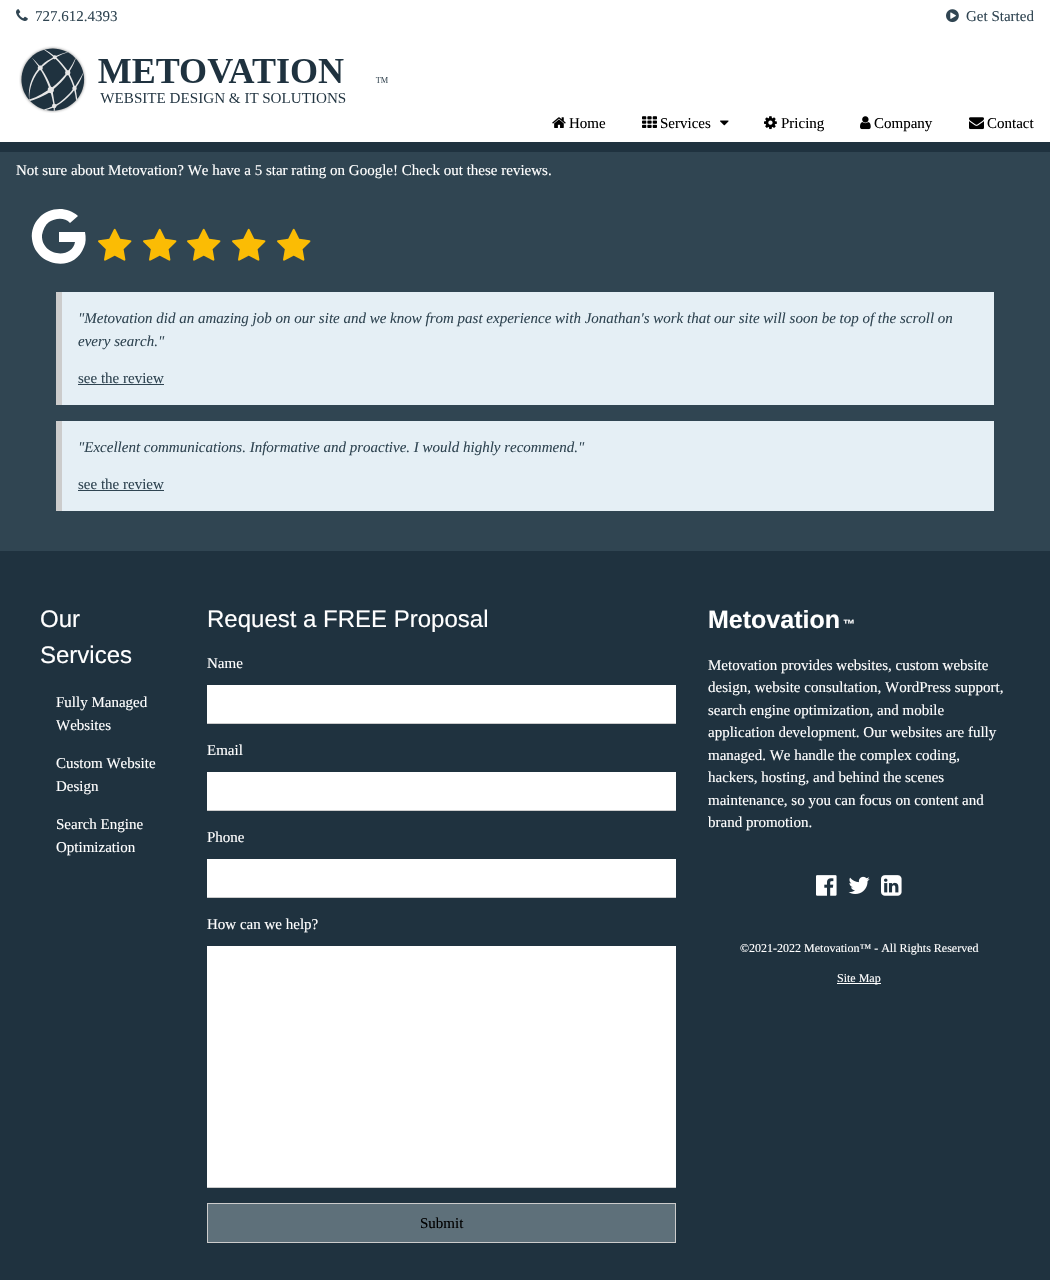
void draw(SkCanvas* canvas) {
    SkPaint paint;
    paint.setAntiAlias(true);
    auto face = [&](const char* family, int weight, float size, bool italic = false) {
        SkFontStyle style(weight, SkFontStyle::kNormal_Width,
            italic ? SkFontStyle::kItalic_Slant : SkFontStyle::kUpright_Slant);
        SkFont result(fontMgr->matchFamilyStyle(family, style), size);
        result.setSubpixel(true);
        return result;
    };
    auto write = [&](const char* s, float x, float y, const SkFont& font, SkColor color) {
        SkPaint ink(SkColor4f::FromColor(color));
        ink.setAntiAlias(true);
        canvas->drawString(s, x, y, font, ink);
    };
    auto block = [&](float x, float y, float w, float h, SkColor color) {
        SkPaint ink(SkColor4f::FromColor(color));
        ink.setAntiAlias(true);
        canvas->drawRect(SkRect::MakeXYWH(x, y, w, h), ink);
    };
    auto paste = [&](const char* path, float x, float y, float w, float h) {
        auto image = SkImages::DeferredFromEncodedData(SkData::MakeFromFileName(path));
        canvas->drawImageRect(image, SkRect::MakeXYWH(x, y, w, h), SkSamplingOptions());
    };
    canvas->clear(SkColorSetRGB(31, 50, 63));
    block(0, 0, 1050, 142, SK_ColorWHITE);
    paste("pic1.png", 16, 9, 12, 12);
    auto kFont1 = face("Liberation Serif", 400, 15);
    write("727.612.4393", 35, 21, kFont1, SkColorSetRGB(48, 69, 82));
    paste("pic2.png", 946, 9, 13, 14);
    write("Get Started", 966, 21, kFont1, SkColorSetRGB(48, 69, 82));
    paste("pic3.png", 19, 46, 369, 67);
    paste("pic4.png", 552, 117, 14, 11);
    write("Home", 569, 128, kFont1, SK_ColorBLACK);
    paste("pic5.png", 642, 116, 15, 12);
    write("Services", 660, 128, kFont1, SK_ColorBLACK);
    paste("pic6.png", 720, 120, 9, 6);
    paste("pic7.png", 764, 116, 13, 14);
    write("Pricing", 781, 128, kFont1, SK_ColorBLACK);
    paste("pic8.png", 860, 116, 11, 14);
    write("Company", 874, 128, kFont1, SK_ColorBLACK);
    paste("pic9.png", 969, 117, 15, 13);
    write("Contact", 987, 128, kFont1, SK_ColorBLACK);
    block(0, 152, 1050, 399, SkColorSetRGB(48, 69, 82));
    write("Not sure about Metovation? We have a 5 star rating on Google! Check out these reviews.", 16, 175, kFont1, SK_ColorWHITE);
    paint.setColor(SK_ColorWHITE);
    canvas->drawPath(SkPathBuilder().moveTo(59, 232).lineTo(85, 232).cubicTo(86, 237, 86, 243, 84, 247).cubicTo(74, 274, 35, 266, 32, 239).cubicTo(31, 231, 34, 223, 39, 218).cubicTo(49, 207, 67, 206, 78, 216).lineTo(70, 223).cubicTo(65, 217, 55, 218, 49, 222).cubicTo(45, 225, 43, 230, 42, 235).cubicTo(41, 256, 72, 260, 75, 242).lineTo(59, 242).close().detach(), paint);
    paste("pic10.png", 98, 228, 34, 33);
    paste("pic10.png", 143, 228, 34, 33);
    paste("pic10.png", 187, 228, 34, 33);
    paste("pic10.png", 232, 228, 34, 33);
    paste("pic10.png", 277, 228, 34, 33);
    block(62, 292, 932, 113, SkColorSetRGB(229, 239, 245));
    block(56, 292, 6, 113, SkColorSetRGB(204, 204, 204));
    auto kFont2 = face("Liberation Serif", 400, 15, true);
    write("\"Metovation did an amazing job on our site and we know from past experience with Jonathan's work that our site will soon be top of the scroll on", 78, 323, kFont2, SkColorSetRGB(48, 69, 82));
    write("every search.\"", 78, 346, kFont2, SkColorSetRGB(48, 69, 82));
    write("see the review", 78, 383, kFont1, SkColorSetRGB(48, 69, 82));
    block(78, 384, 86, 1, SkColorSetRGB(48, 69, 82));
    block(62, 421, 932, 90, SkColorSetRGB(229, 239, 245));
    block(56, 421, 6, 90, SkColorSetRGB(204, 204, 204));
    write("\"Excellent communications. Informative and proactive. I would highly recommend.\"", 78, 452, kFont2, SkColorSetRGB(48, 69, 82));
    write("see the review", 78, 489, kFont1, SkColorSetRGB(48, 69, 82));
    block(78, 490, 86, 1, SkColorSetRGB(48, 69, 82));
    auto kFont3 = face("Liberation Sans", 400, 24);
    write("Our", 40, 627, kFont3, SK_ColorWHITE);
    write("Services", 40, 663, kFont3, SK_ColorWHITE);
    write("Fully Managed", 56, 707, kFont1, SK_ColorWHITE);
    write("Websites", 56, 730, kFont1, SK_ColorWHITE);
    write("Custom Website", 56, 768, kFont1, SK_ColorWHITE);
    write("Design", 56, 791, kFont1, SK_ColorWHITE);
    write("Search Engine", 56, 829, kFont1, SK_ColorWHITE);
    write("Optimization", 56, 852, kFont1, SK_ColorWHITE);
    write("Request a FREE Proposal", 207, 627, kFont3, SK_ColorWHITE);
    write("Name", 207, 668, kFont1, SK_ColorWHITE);
    block(207, 685, 469, 38, SK_ColorWHITE);
    block(207, 723, 469, 1, SkColorSetRGB(204, 204, 204));
    write("Email", 207, 755, kFont1, SK_ColorWHITE);
    block(207, 772, 469, 38, SK_ColorWHITE);
    block(207, 810, 469, 1, SkColorSetRGB(204, 204, 204));
    write("Phone", 207, 842, kFont1, SK_ColorWHITE);
    block(207, 859, 469, 38, SK_ColorWHITE);
    block(207, 897, 469, 1, SkColorSetRGB(204, 204, 204));
    write("How can we help?", 207, 929, kFont1, SK_ColorWHITE);
    block(207, 946, 469, 241, SK_ColorWHITE);
    block(207, 1187, 469, 1, SkColorSetRGB(204, 204, 204));
    paint.setColor(SkColorSetRGB(94, 112, 122));
    canvas->drawRect(SkRect::MakeXYWH(207.5f, 1203.5f, 468, 39), paint);
    paint.setStyle(SkPaint::kStroke_Style);
    paint.setStrokeWidth(1);
    paint.setColor(SkColorSetRGB(204, 204, 204));
    canvas->drawRect(SkRect::MakeXYWH(207.5f, 1203.5f, 468, 39), paint);
    write("Submit", 420, 1228, kFont1, SK_ColorBLACK);
    auto kFont4 = face("Liberation Sans", 700, 25);
    write("Metovation", 708, 628, kFont4, SK_ColorWHITE);
    auto kFont5 = face("Liberation Sans", 700, 12);
    write("™", 843, 628, kFont5, SK_ColorWHITE);
    write("Metovation provides websites, custom website", 708, 670, kFont1, SK_ColorWHITE);
    write("design, website consultation, WordPress support,", 708, 692, kFont1, SK_ColorWHITE);
    write("search engine optimization, and mobile", 708, 715, kFont1, SK_ColorWHITE);
    write("application development. Our websites are fully", 708, 737, kFont1, SK_ColorWHITE);
    write("managed. We handle the complex coding,", 708, 760, kFont1, SK_ColorWHITE);
    write("hackers, hosting, and behind the scenes", 708, 782, kFont1, SK_ColorWHITE);
    write("maintenance, so you can focus on content and", 708, 805, kFont1, SK_ColorWHITE);
    write("brand promotion.", 708, 827, kFont1, SK_ColorWHITE);
    paste("pic11.png", 816, 875, 21, 21);
    paste("pic12.png", 848, 876, 22, 18);
    paste("pic13.png", 881, 875, 21, 21);
    auto kFont6 = face("Liberation Serif", 400, 12);
    write("©2021-2022 Metovation™ - All Rights Reserved", 740, 952, kFont6, SK_ColorWHITE);
    block(837, 983, 44, 1, SK_ColorWHITE);
    write("Site Map", 837, 982, kFont6, SK_ColorWHITE);
}
